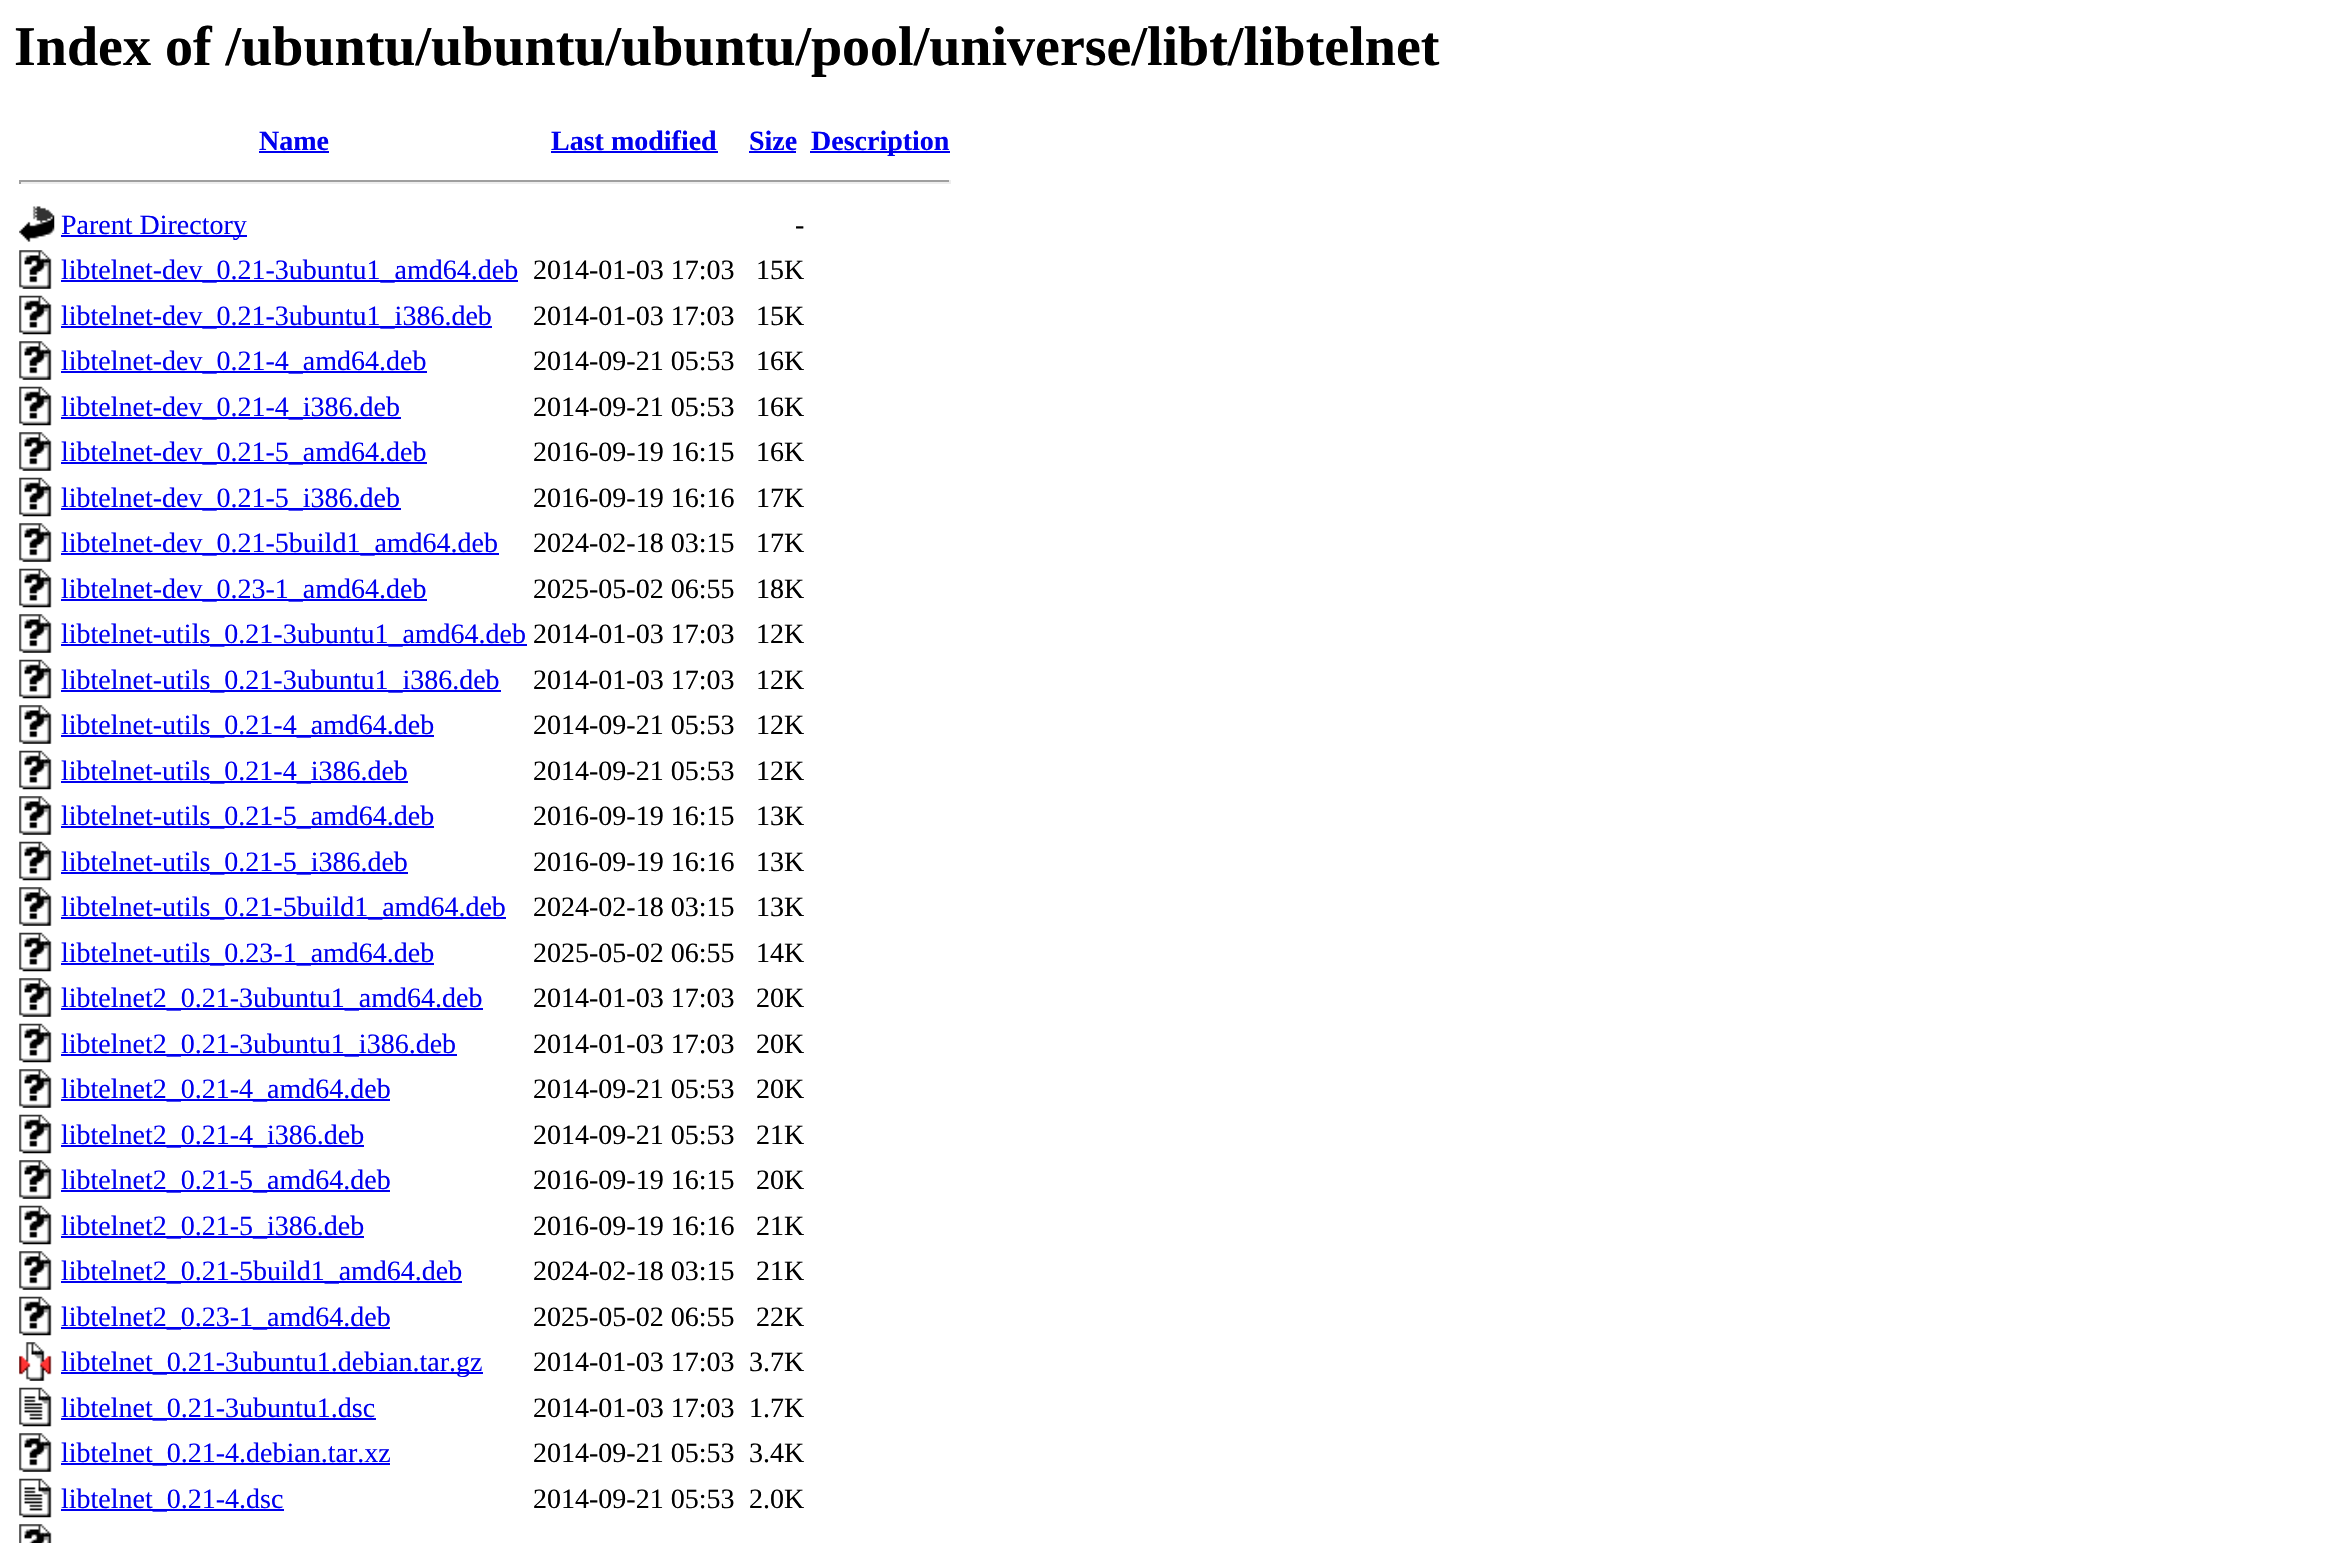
void draw(SkCanvas* canvas) {
    SkPaint paint;
    paint.setAntiAlias(true);
    auto face = [&](const char* family, int weight, float size, bool italic = false) {
        SkFontStyle style(weight, SkFontStyle::kNormal_Width,
            italic ? SkFontStyle::kItalic_Slant : SkFontStyle::kUpright_Slant);
        SkFont result(fontMgr->matchFamilyStyle(family, style), size);
        result.setSubpixel(true);
        return result;
    };
    auto write = [&](const char* s, float x, float y, const SkFont& font, SkColor color) {
        SkPaint ink(SkColor4f::FromColor(color));
        ink.setAntiAlias(true);
        canvas->drawString(s, x, y, font, ink);
    };
    auto block = [&](float x, float y, float w, float h, SkColor color) {
        SkPaint ink(SkColor4f::FromColor(color));
        ink.setAntiAlias(true);
        canvas->drawRect(SkRect::MakeXYWH(x, y, w, h), ink);
    };
    auto paste = [&](const char* path, float x, float y, float w, float h) {
        auto image = SkImages::DeferredFromEncodedData(SkData::MakeFromFileName(path));
        canvas->drawImageRect(image, SkRect::MakeXYWH(x, y, w, h), SkSamplingOptions());
    };
    canvas->clear(SK_ColorWHITE);
    auto kFont1 = face("Liberation Serif", 700, 56);
    write("Index of /ubuntu/ubuntu/ubuntu/pool/universe/libt/libtelnet", 14, 65, kFont1, SK_ColorBLACK);
    auto kFont2 = face("Liberation Serif", 700, 28);
    write("Name", 259, 150, kFont2, SkColorSetRGB(0, 0, 238));
    block(259, 151, 70, 2, SkColorSetRGB(0, 0, 238));
    write("Last modified", 551, 150, kFont2, SkColorSetRGB(0, 0, 238));
    block(551, 151, 167, 2, SkColorSetRGB(0, 0, 238));
    write("Size", 749, 150, kFont2, SkColorSetRGB(0, 0, 238));
    block(749, 151, 47, 2, SkColorSetRGB(0, 0, 238));
    block(810, 151, 140, 2, SkColorSetRGB(0, 0, 238));
    write("Description", 811, 150, kFont2, SkColorSetRGB(0, 0, 238));
    block(19, 180, 931, 2, SkColorSetRGB(159, 159, 159));
    block(949, 180, 2, 4, SkColorSetRGB(238, 238, 238));
    block(19, 182, 931, 2, SkColorSetRGB(238, 238, 238));
    block(19, 180, 2, 4, SkColorSetRGB(159, 159, 159));
    paste("pic1.png", 19, 206, 36, 36);
    block(61, 235, 186, 2, SkColorSetRGB(0, 0, 238));
    auto kFont3 = face("Liberation Serif", 400, 28);
    write("Parent Directory", 61, 234, kFont3, SkColorSetRGB(0, 0, 238));
    write("-", 795, 234, kFont3, SK_ColorBLACK);
    paste("pic2.png", 19, 250, 33, 39);
    block(61, 280, 457, 2, SkColorSetRGB(0, 0, 238));
    write("libtelnet-dev_0.21-3ubuntu1_amd64.deb", 61, 279, kFont3, SkColorSetRGB(0, 0, 238));
    write("2014-01-03 17:03", 533, 279, kFont3, SK_ColorBLACK);
    write("15K", 756, 279, kFont3, SK_ColorBLACK);
    paste("pic3.png", 19, 295, 33, 40);
    block(61, 326, 431, 2, SkColorSetRGB(0, 0, 238));
    write("libtelnet-dev_0.21-3ubuntu1_i386.deb", 61, 325, kFont3, SkColorSetRGB(0, 0, 238));
    write("2014-01-03 17:03", 533, 325, kFont3, SK_ColorBLACK);
    write("15K", 756, 325, kFont3, SK_ColorBLACK);
    paste("pic2.png", 19, 341, 33, 39);
    block(61, 371, 366, 2, SkColorSetRGB(0, 0, 238));
    write("libtelnet-dev_0.21-4_amd64.deb", 61, 370, kFont3, SkColorSetRGB(0, 0, 238));
    write("2014-09-21 05:53", 533, 370, kFont3, SK_ColorBLACK);
    write("16K", 756, 370, kFont3, SK_ColorBLACK);
    paste("pic3.png", 19, 386, 33, 40);
    block(61, 417, 340, 2, SkColorSetRGB(0, 0, 238));
    write("libtelnet-dev_0.21-4_i386.deb", 61, 416, kFont3, SkColorSetRGB(0, 0, 238));
    write("2014-09-21 05:53", 533, 416, kFont3, SK_ColorBLACK);
    write("16K", 756, 416, kFont3, SK_ColorBLACK);
    paste("pic2.png", 19, 432, 33, 39);
    block(61, 462, 366, 2, SkColorSetRGB(0, 0, 238));
    write("libtelnet-dev_0.21-5_amd64.deb", 61, 461, kFont3, SkColorSetRGB(0, 0, 238));
    write("2016-09-19 16:15", 533, 461, kFont3, SK_ColorBLACK);
    write("16K", 756, 461, kFont3, SK_ColorBLACK);
    paste("pic3.png", 19, 477, 33, 40);
    block(61, 508, 340, 2, SkColorSetRGB(0, 0, 238));
    write("libtelnet-dev_0.21-5_i386.deb", 61, 507, kFont3, SkColorSetRGB(0, 0, 238));
    write("2016-09-19 16:16", 533, 507, kFont3, SK_ColorBLACK);
    write("17K", 756, 507, kFont3, SK_ColorBLACK);
    paste("pic2.png", 19, 523, 33, 39);
    block(61, 553, 438, 2, SkColorSetRGB(0, 0, 238));
    write("libtelnet-dev_0.21-5build1_amd64.deb", 61, 552, kFont3, SkColorSetRGB(0, 0, 238));
    write("2024-02-18 03:15", 533, 552, kFont3, SK_ColorBLACK);
    write("17K", 756, 552, kFont3, SK_ColorBLACK);
    paste("pic3.png", 19, 568, 33, 40);
    block(61, 599, 366, 2, SkColorSetRGB(0, 0, 238));
    write("libtelnet-dev_0.23-1_amd64.deb", 61, 598, kFont3, SkColorSetRGB(0, 0, 238));
    write("2025-05-02 06:55", 533, 598, kFont3, SK_ColorBLACK);
    write("18K", 756, 598, kFont3, SK_ColorBLACK);
    paste("pic2.png", 19, 614, 33, 39);
    block(61, 644, 466, 2, SkColorSetRGB(0, 0, 238));
    write("libtelnet-utils_0.21-3ubuntu1_amd64.deb", 61, 643, kFont3, SkColorSetRGB(0, 0, 238));
    write("2014-01-03 17:03", 533, 643, kFont3, SK_ColorBLACK);
    write("12K", 756, 643, kFont3, SK_ColorBLACK);
    paste("pic3.png", 19, 659, 33, 40);
    block(61, 690, 440, 2, SkColorSetRGB(0, 0, 238));
    write("libtelnet-utils_0.21-3ubuntu1_i386.deb", 61, 689, kFont3, SkColorSetRGB(0, 0, 238));
    write("2014-01-03 17:03", 533, 689, kFont3, SK_ColorBLACK);
    write("12K", 756, 689, kFont3, SK_ColorBLACK);
    paste("pic2.png", 19, 705, 33, 39);
    block(61, 735, 373, 2, SkColorSetRGB(0, 0, 238));
    write("libtelnet-utils_0.21-4_amd64.deb", 61, 734, kFont3, SkColorSetRGB(0, 0, 238));
    write("2014-09-21 05:53", 533, 734, kFont3, SK_ColorBLACK);
    write("12K", 756, 734, kFont3, SK_ColorBLACK);
    paste("pic3.png", 19, 750, 33, 40);
    block(61, 781, 347, 2, SkColorSetRGB(0, 0, 238));
    write("libtelnet-utils_0.21-4_i386.deb", 61, 780, kFont3, SkColorSetRGB(0, 0, 238));
    write("2014-09-21 05:53", 533, 780, kFont3, SK_ColorBLACK);
    write("12K", 756, 780, kFont3, SK_ColorBLACK);
    paste("pic2.png", 19, 796, 33, 39);
    block(61, 826, 373, 2, SkColorSetRGB(0, 0, 238));
    write("libtelnet-utils_0.21-5_amd64.deb", 61, 825, kFont3, SkColorSetRGB(0, 0, 238));
    write("2016-09-19 16:15", 533, 825, kFont3, SK_ColorBLACK);
    write("13K", 756, 825, kFont3, SK_ColorBLACK);
    paste("pic3.png", 19, 841, 33, 40);
    block(61, 872, 347, 2, SkColorSetRGB(0, 0, 238));
    write("libtelnet-utils_0.21-5_i386.deb", 61, 871, kFont3, SkColorSetRGB(0, 0, 238));
    write("2016-09-19 16:16", 533, 871, kFont3, SK_ColorBLACK);
    write("13K", 756, 871, kFont3, SK_ColorBLACK);
    paste("pic2.png", 19, 887, 33, 39);
    block(61, 917, 445, 2, SkColorSetRGB(0, 0, 238));
    write("libtelnet-utils_0.21-5build1_amd64.deb", 61, 916, kFont3, SkColorSetRGB(0, 0, 238));
    write("2024-02-18 03:15", 533, 916, kFont3, SK_ColorBLACK);
    write("13K", 756, 916, kFont3, SK_ColorBLACK);
    paste("pic3.png", 19, 932, 33, 40);
    block(61, 963, 373, 2, SkColorSetRGB(0, 0, 238));
    write("libtelnet-utils_0.23-1_amd64.deb", 61, 962, kFont3, SkColorSetRGB(0, 0, 238));
    write("2025-05-02 06:55", 533, 962, kFont3, SK_ColorBLACK);
    write("14K", 756, 962, kFont3, SK_ColorBLACK);
    paste("pic2.png", 19, 978, 33, 39);
    block(61, 1008, 422, 2, SkColorSetRGB(0, 0, 238));
    write("libtelnet2_0.21-3ubuntu1_amd64.deb", 61, 1007, kFont3, SkColorSetRGB(0, 0, 238));
    write("2014-01-03 17:03", 533, 1007, kFont3, SK_ColorBLACK);
    write("20K", 756, 1007, kFont3, SK_ColorBLACK);
    paste("pic3.png", 19, 1023, 33, 40);
    block(61, 1054, 396, 2, SkColorSetRGB(0, 0, 238));
    write("libtelnet2_0.21-3ubuntu1_i386.deb", 61, 1053, kFont3, SkColorSetRGB(0, 0, 238));
    write("2014-01-03 17:03", 533, 1053, kFont3, SK_ColorBLACK);
    write("20K", 756, 1053, kFont3, SK_ColorBLACK);
    paste("pic2.png", 19, 1069, 33, 39);
    block(61, 1099, 329, 2, SkColorSetRGB(0, 0, 238));
    write("libtelnet2_0.21-4_amd64.deb", 61, 1098, kFont3, SkColorSetRGB(0, 0, 238));
    write("2014-09-21 05:53", 533, 1098, kFont3, SK_ColorBLACK);
    write("20K", 756, 1098, kFont3, SK_ColorBLACK);
    paste("pic3.png", 19, 1114, 33, 40);
    block(61, 1145, 303, 2, SkColorSetRGB(0, 0, 238));
    write("libtelnet2_0.21-4_i386.deb", 61, 1144, kFont3, SkColorSetRGB(0, 0, 238));
    write("2014-09-21 05:53", 533, 1144, kFont3, SK_ColorBLACK);
    write("21K", 756, 1144, kFont3, SK_ColorBLACK);
    paste("pic2.png", 19, 1160, 33, 39);
    block(61, 1190, 329, 2, SkColorSetRGB(0, 0, 238));
    write("libtelnet2_0.21-5_amd64.deb", 61, 1189, kFont3, SkColorSetRGB(0, 0, 238));
    write("2016-09-19 16:15", 533, 1189, kFont3, SK_ColorBLACK);
    write("20K", 756, 1189, kFont3, SK_ColorBLACK);
    paste("pic3.png", 19, 1205, 33, 40);
    block(61, 1236, 303, 2, SkColorSetRGB(0, 0, 238));
    write("libtelnet2_0.21-5_i386.deb", 61, 1235, kFont3, SkColorSetRGB(0, 0, 238));
    write("2016-09-19 16:16", 533, 1235, kFont3, SK_ColorBLACK);
    write("21K", 756, 1235, kFont3, SK_ColorBLACK);
    paste("pic2.png", 19, 1251, 33, 39);
    block(61, 1281, 401, 2, SkColorSetRGB(0, 0, 238));
    write("libtelnet2_0.21-5build1_amd64.deb", 61, 1280, kFont3, SkColorSetRGB(0, 0, 238));
    write("2024-02-18 03:15", 533, 1280, kFont3, SK_ColorBLACK);
    write("21K", 756, 1280, kFont3, SK_ColorBLACK);
    paste("pic3.png", 19, 1296, 33, 40);
    block(61, 1327, 329, 2, SkColorSetRGB(0, 0, 238));
    write("libtelnet2_0.23-1_amd64.deb", 61, 1326, kFont3, SkColorSetRGB(0, 0, 238));
    write("2025-05-02 06:55", 533, 1326, kFont3, SK_ColorBLACK);
    write("22K", 756, 1326, kFont3, SK_ColorBLACK);
    paste("pic4.png", 19, 1342, 33, 39);
    block(61, 1372, 422, 2, SkColorSetRGB(0, 0, 238));
    write("libtelnet_0.21-3ubuntu1.debian.tar.gz", 61, 1371, kFont3, SkColorSetRGB(0, 0, 238));
    write("2014-01-03 17:03", 533, 1371, kFont3, SK_ColorBLACK);
    write("3.7K", 749, 1371, kFont3, SK_ColorBLACK);
    paste("pic5.png", 19, 1387, 33, 40);
    block(61, 1418, 315, 2, SkColorSetRGB(0, 0, 238));
    write("libtelnet_0.21-3ubuntu1.dsc", 61, 1417, kFont3, SkColorSetRGB(0, 0, 238));
    write("2014-01-03 17:03", 533, 1417, kFont3, SK_ColorBLACK);
    write("1.7K", 749, 1417, kFont3, SK_ColorBLACK);
    paste("pic2.png", 19, 1433, 33, 39);
    block(61, 1463, 329, 2, SkColorSetRGB(0, 0, 238));
    write("libtelnet_0.21-4.debian.tar.xz", 61, 1462, kFont3, SkColorSetRGB(0, 0, 238));
    write("2014-09-21 05:53", 533, 1462, kFont3, SK_ColorBLACK);
    write("3.4K", 749, 1462, kFont3, SK_ColorBLACK);
    paste("pic5.png", 19, 1478, 33, 40);
    block(61, 1509, 223, 2, SkColorSetRGB(0, 0, 238));
    write("libtelnet_0.21-4.dsc", 61, 1508, kFont3, SkColorSetRGB(0, 0, 238));
    write("2014-09-21 05:53", 533, 1508, kFont3, SK_ColorBLACK);
    write("2.0K", 749, 1508, kFont3, SK_ColorBLACK);
    paste("pic6.png", 19, 1524, 33, 19);
}
